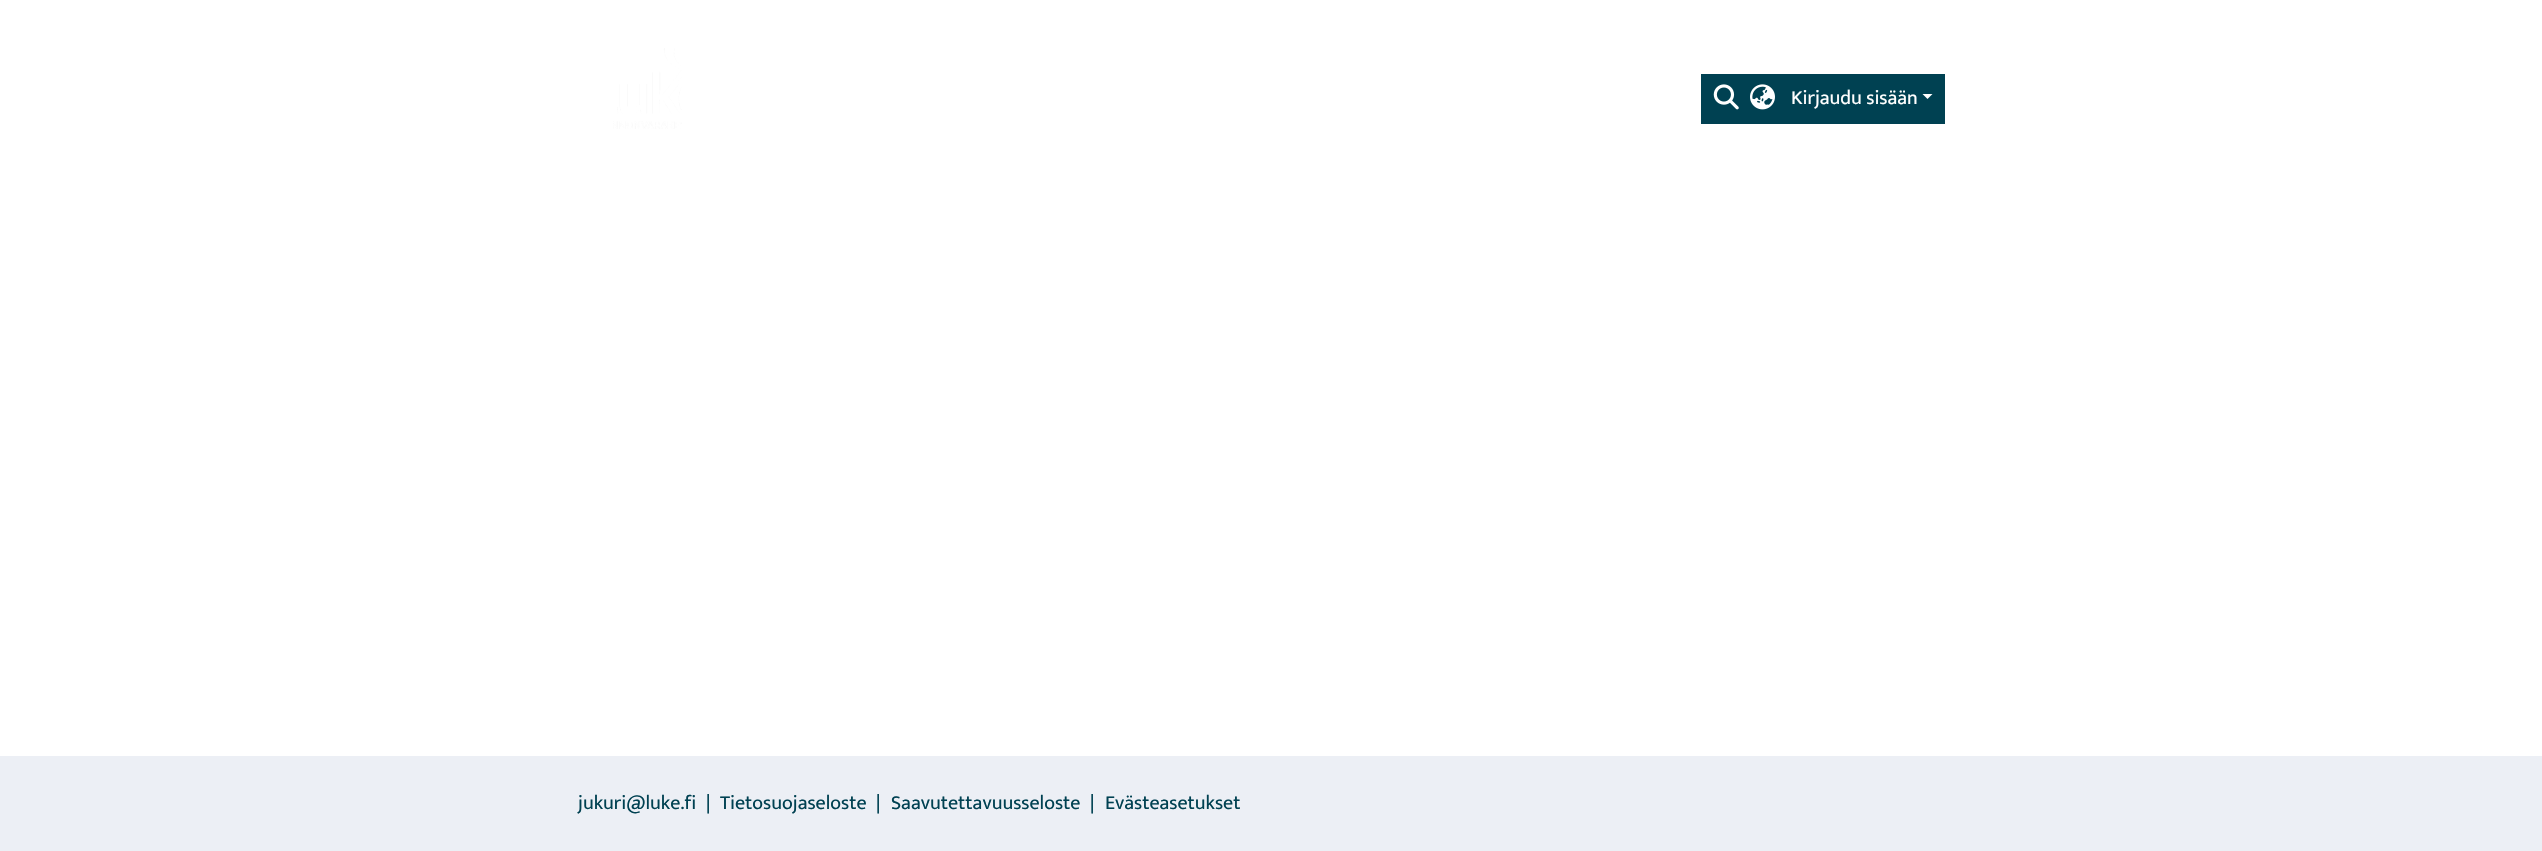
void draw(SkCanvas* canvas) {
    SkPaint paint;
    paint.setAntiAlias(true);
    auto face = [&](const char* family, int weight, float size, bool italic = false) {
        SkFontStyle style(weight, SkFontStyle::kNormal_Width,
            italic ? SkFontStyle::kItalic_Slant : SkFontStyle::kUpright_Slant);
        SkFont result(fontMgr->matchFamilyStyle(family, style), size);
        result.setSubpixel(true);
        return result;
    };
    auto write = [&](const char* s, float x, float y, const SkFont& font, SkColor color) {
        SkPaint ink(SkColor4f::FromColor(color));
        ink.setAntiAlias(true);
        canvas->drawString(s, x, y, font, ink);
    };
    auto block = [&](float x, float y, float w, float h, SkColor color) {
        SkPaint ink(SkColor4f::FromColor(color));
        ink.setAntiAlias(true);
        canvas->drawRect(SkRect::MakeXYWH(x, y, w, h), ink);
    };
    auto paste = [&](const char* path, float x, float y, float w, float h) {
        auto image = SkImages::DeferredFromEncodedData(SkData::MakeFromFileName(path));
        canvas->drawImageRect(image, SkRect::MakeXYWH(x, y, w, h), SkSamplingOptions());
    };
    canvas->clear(SK_ColorWHITE);
    paste("pic1.png", 613, 48, 69, 81);
    block(1701, 74, 244, 50, SkColorSetRGB(0, 65, 82));
    paste("pic2.png", 1713, 84, 26, 26);
    paste("pic3.png", 1750, 84, 25, 26);
    auto kFont1 = face("Mukta", 400, 20);
    write("Kirjaudu sisään", 1791, 104, kFont1, SK_ColorWHITE);
    paint.setColor(SK_ColorWHITE);
    canvas->drawPath(SkPathBuilder().moveTo(1922.5f, 94).lineTo(1932.5f, 94).lineTo(1927.5f, 99).close().detach(), paint);
    block(0, 756, 2542, 95, SkColorSetRGB(236, 239, 245));
    write("jukuri@luke.fi", 578, 809, kFont1, SkColorSetRGB(0, 65, 82));
    write("|", 706, 809, kFont1, SkColorSetRGB(0, 65, 82));
    write("Tietosuojaseloste", 720, 809, kFont1, SkColorSetRGB(0, 65, 82));
    write("|", 876, 809, kFont1, SkColorSetRGB(0, 65, 82));
    write("Saavutettavuusseloste", 891, 809, kFont1, SkColorSetRGB(0, 65, 82));
    write("|", 1090, 809, kFont1, SkColorSetRGB(0, 65, 82));
    write("Evästeasetukset", 1105, 809, kFont1, SkColorSetRGB(0, 65, 82));
}
